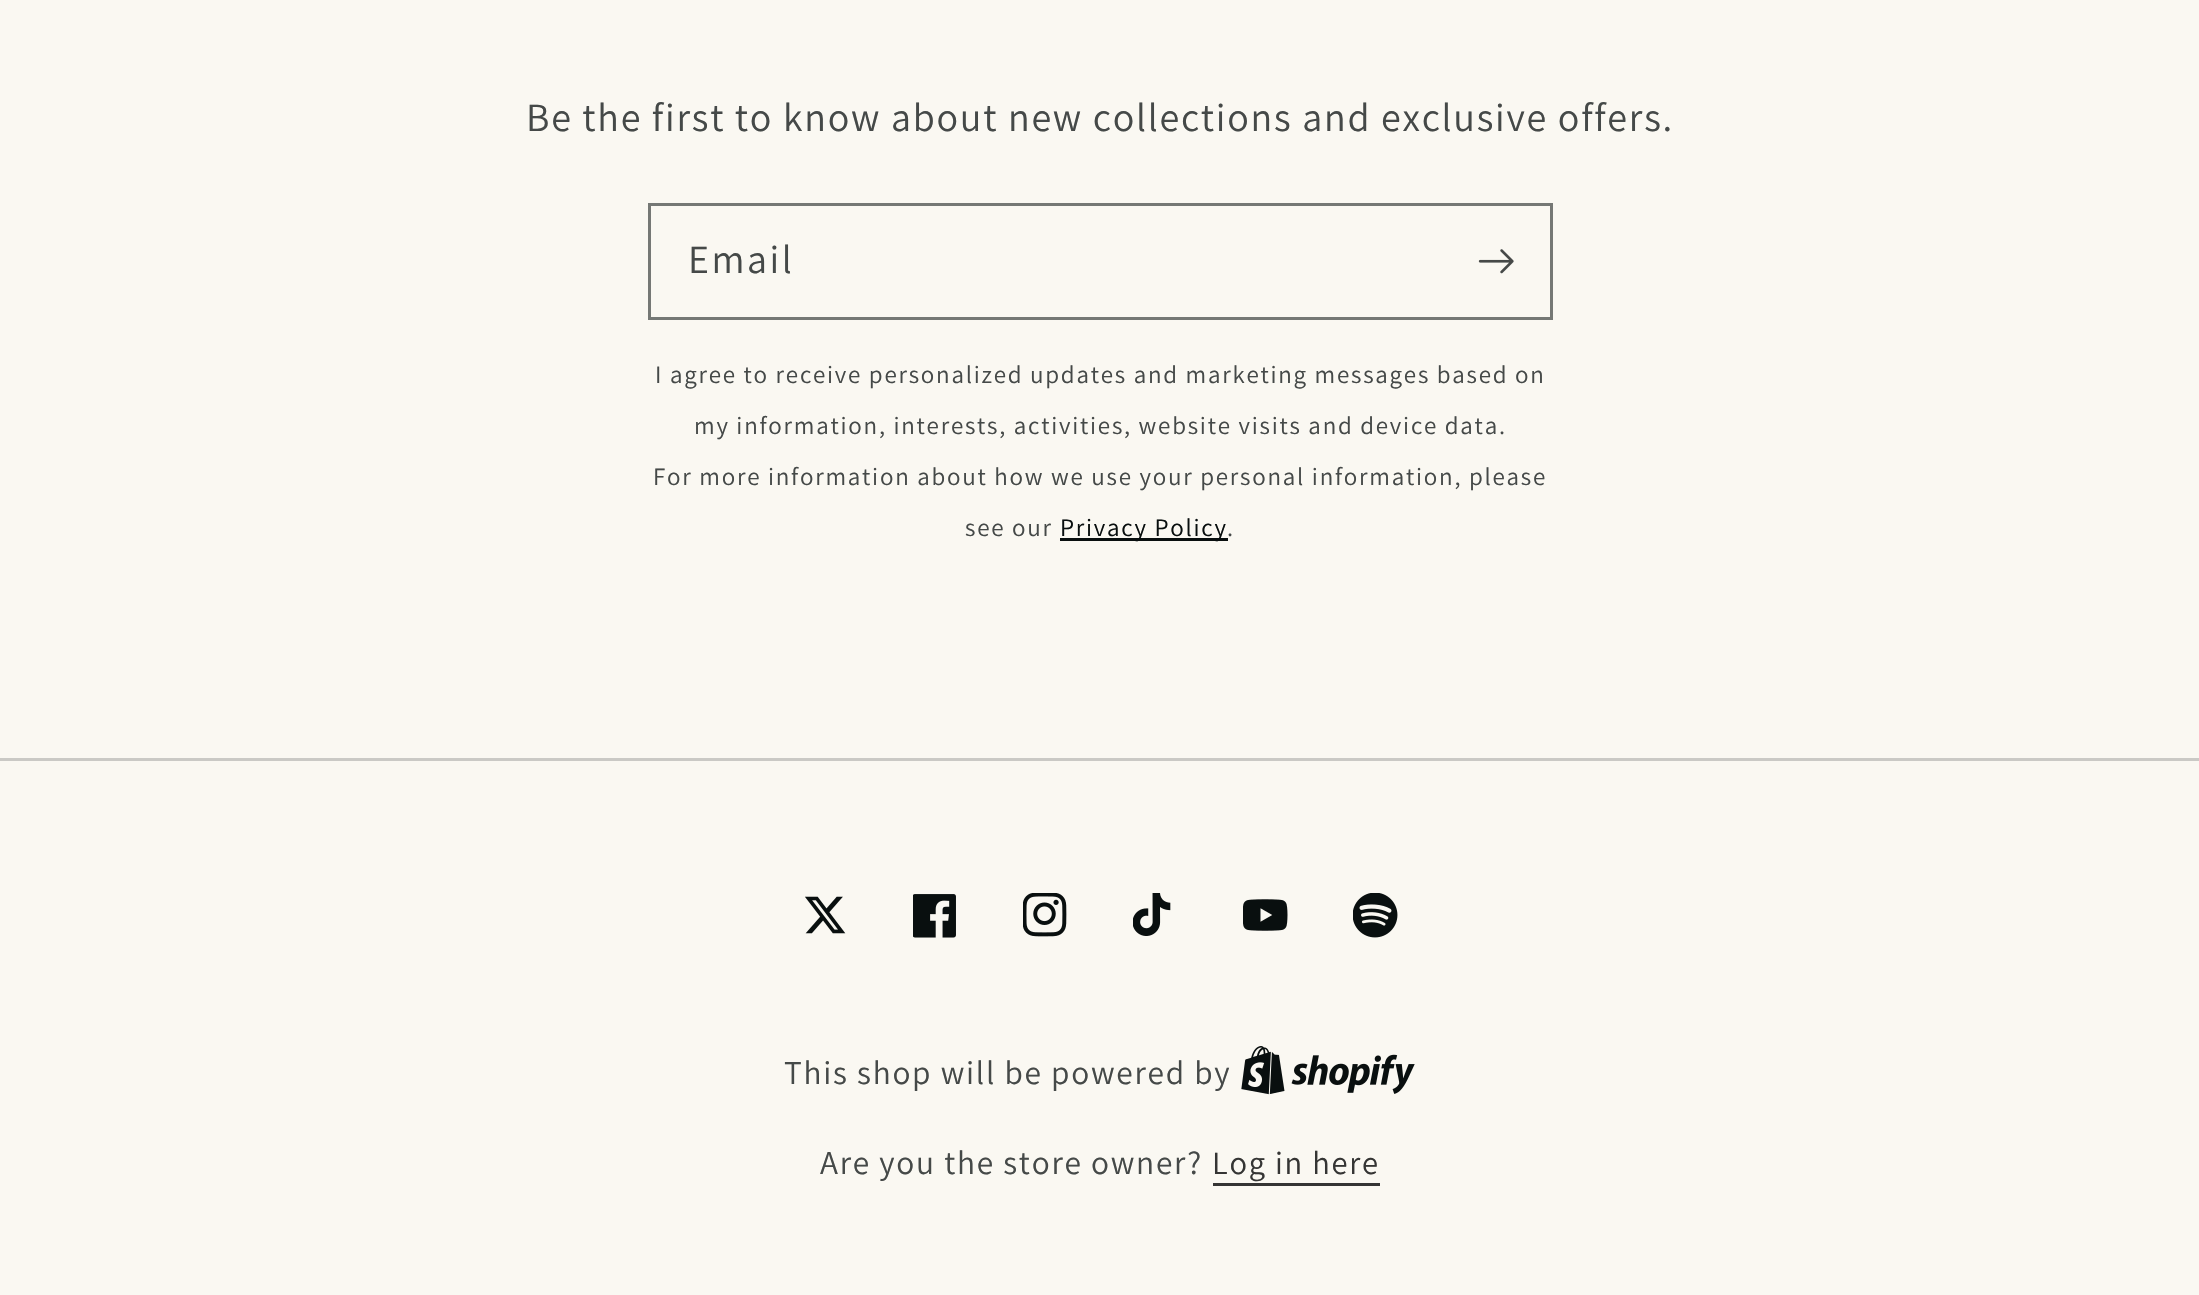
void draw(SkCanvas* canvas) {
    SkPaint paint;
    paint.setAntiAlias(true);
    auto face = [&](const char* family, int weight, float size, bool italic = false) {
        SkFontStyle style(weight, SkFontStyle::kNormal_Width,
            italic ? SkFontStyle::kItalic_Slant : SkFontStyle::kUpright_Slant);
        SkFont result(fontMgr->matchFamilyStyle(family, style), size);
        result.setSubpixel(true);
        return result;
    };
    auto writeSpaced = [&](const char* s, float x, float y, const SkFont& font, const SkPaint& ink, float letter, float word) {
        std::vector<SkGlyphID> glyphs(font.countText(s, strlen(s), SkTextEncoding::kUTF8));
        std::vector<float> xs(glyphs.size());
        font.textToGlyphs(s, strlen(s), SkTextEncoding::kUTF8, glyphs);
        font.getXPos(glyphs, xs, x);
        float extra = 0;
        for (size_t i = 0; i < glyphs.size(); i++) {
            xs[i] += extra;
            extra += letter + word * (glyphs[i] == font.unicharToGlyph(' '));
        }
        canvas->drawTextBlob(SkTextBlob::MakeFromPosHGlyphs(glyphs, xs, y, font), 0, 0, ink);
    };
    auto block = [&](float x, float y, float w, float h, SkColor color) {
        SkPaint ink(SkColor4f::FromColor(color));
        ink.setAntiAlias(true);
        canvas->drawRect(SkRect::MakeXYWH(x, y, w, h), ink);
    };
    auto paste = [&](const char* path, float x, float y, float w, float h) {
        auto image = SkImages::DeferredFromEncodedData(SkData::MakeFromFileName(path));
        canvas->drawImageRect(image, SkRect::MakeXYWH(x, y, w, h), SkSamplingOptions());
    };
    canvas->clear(SkColorSetRGB(250, 248, 242));
    auto kFont1 = face("Assistant", 400, 40);
    paint.setColor(SkColorSetRGB(69, 73, 72));
    writeSpaced("Be the first to know about new collections and exclusive offers.", 526, 131, kFont1, paint, 1.75f, 0);
    paint.setStyle(SkPaint::kStroke_Style);
    paint.setStrokeWidth(3);
    paint.setColor(SkColorSetRGB(117, 120, 117));
    canvas->drawRect(SkRect::MakeXYWH(649.5f, 204.5f, 902, 114), paint);
    paint.setStyle(SkPaint::kFill_Style);
    paint.setColor(SkColorSetRGB(69, 73, 72));
    writeSpaced("Email", 688, 273, kFont1, paint, 2.5f, 0);
    paste("pic1.png", 1478, 249, 36, 25);
    auto kFont2 = face("Assistant", 400, 25);
    writeSpaced("I agree to receive personalized updates and marketing messages based on", 655, 383, kFont2, paint, 1.75f, 0);
    writeSpaced("my information, interests, activities, website visits and device data.", 694, 434, kFont2, paint, 1.75f, 0);
    writeSpaced("For more information about how we use your personal information, please", 653, 485, kFont2, paint, 1.75f, 0);
    writeSpaced("see our", 965, 536, kFont2, paint, 1.75f, 0);
    block(1060, 538, 168, 3, SkColorSetRGB(9, 15, 15));
    paint.setColor(SkColorSetRGB(9, 15, 15));
    writeSpaced("Privacy Policy", 1060, 536, kFont2, paint, 1.75f, 0);
    paint.setColor(SkColorSetRGB(69, 73, 72));
    writeSpaced(".", 1227, 536, kFont2, paint, 1.75f, 0);
    block(0, 758, 2199, 3, SkColorSetRGB(202, 201, 197));
    paste("pic2.png", 805, 896, 41, 38);
    paste("pic3.png", 913, 894, 43, 44);
    paste("pic4.png", 1023, 893, 44, 44);
    paste("pic5.png", 1133, 893, 38, 43);
    paste("pic6.png", 1243, 899, 45, 32);
    paste("pic7.png", 1353, 893, 45, 45);
    auto kFont3 = face("Assistant", 400, 33.3f);
    writeSpaced("This shop will be powered by", 784, 1084, kFont3, paint, 1.75f, 0);
    paste("pic8.png", 1241, 1046, 174, 49);
    writeSpaced("Are you the store owner?", 820, 1174, kFont3, paint, 1.75f, 0);
    auto kFont4 = face("Assistant", 400, 32.5f);
    paint.setColor(SkColorSetRGB(53, 53, 52));
    writeSpaced("Log in here", 1212, 1174, kFont4, paint, 1.75f, 0);
    block(1213, 1183, 167, 3, SkColorSetRGB(53, 53, 52));
}
